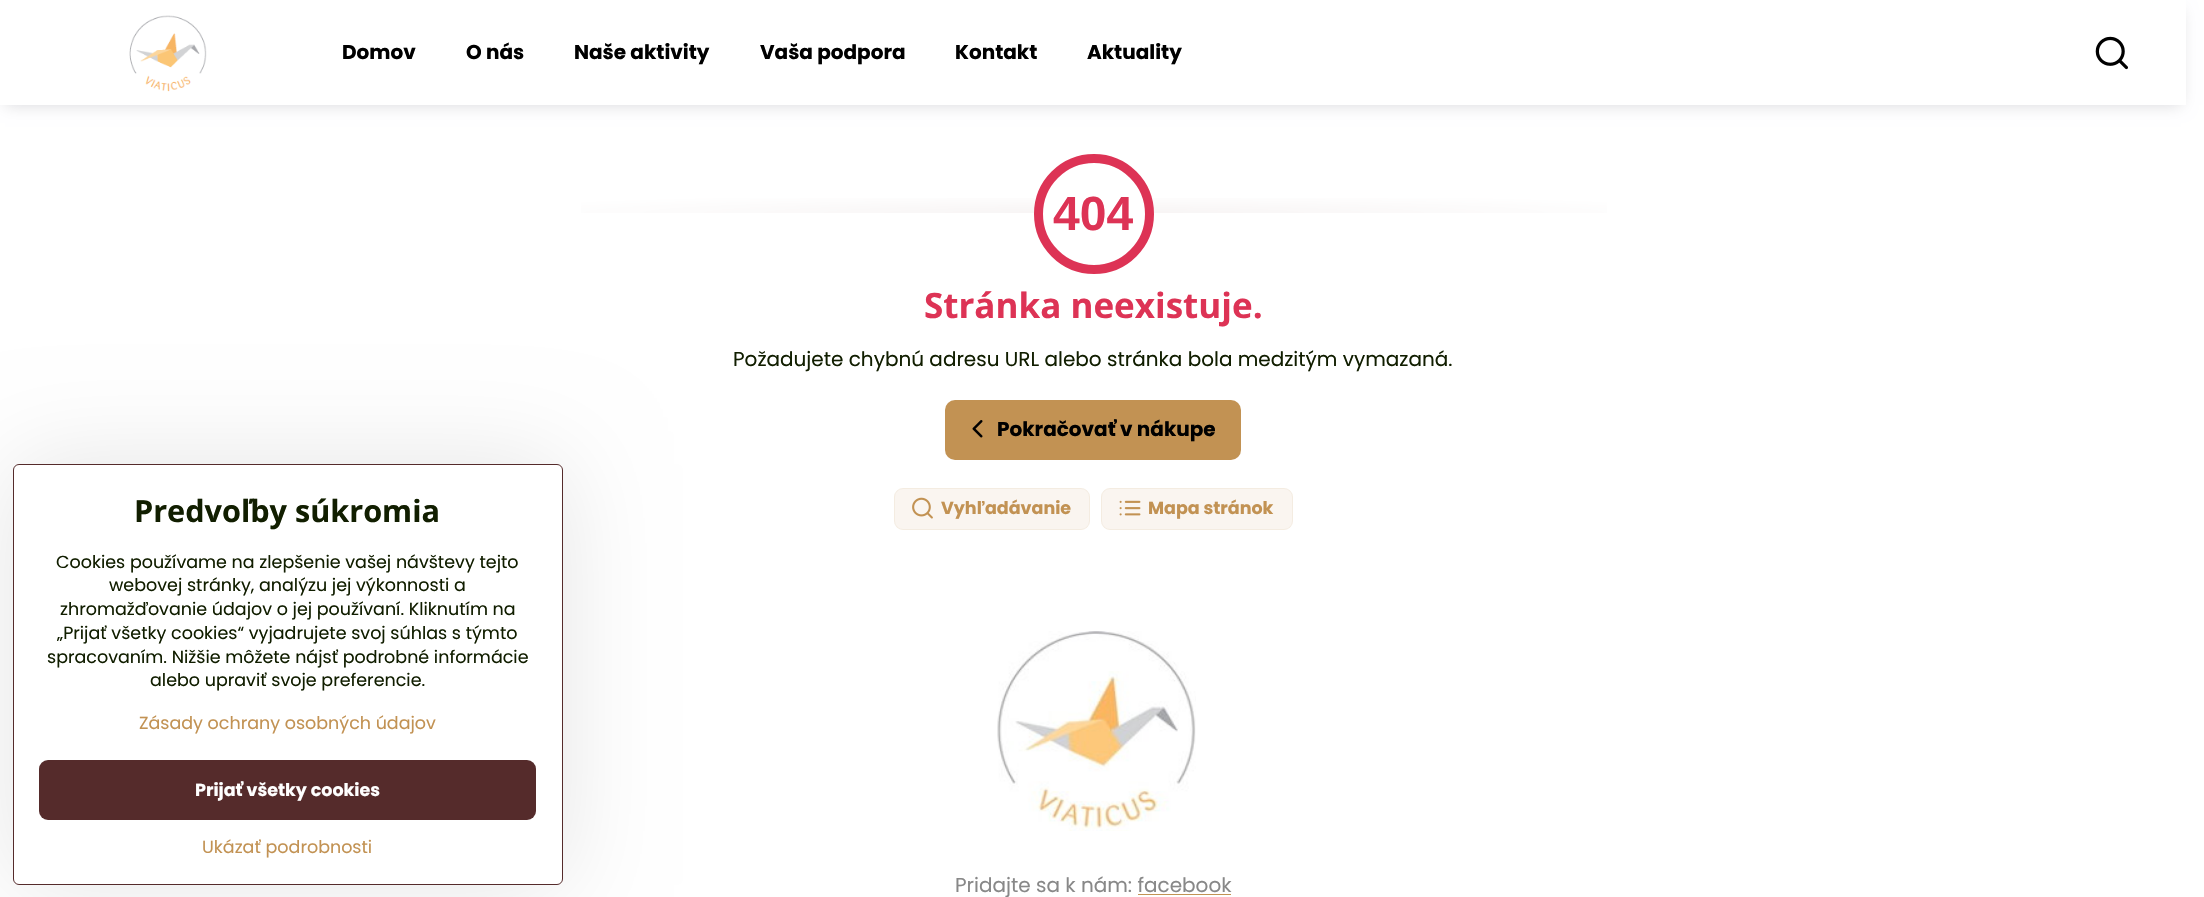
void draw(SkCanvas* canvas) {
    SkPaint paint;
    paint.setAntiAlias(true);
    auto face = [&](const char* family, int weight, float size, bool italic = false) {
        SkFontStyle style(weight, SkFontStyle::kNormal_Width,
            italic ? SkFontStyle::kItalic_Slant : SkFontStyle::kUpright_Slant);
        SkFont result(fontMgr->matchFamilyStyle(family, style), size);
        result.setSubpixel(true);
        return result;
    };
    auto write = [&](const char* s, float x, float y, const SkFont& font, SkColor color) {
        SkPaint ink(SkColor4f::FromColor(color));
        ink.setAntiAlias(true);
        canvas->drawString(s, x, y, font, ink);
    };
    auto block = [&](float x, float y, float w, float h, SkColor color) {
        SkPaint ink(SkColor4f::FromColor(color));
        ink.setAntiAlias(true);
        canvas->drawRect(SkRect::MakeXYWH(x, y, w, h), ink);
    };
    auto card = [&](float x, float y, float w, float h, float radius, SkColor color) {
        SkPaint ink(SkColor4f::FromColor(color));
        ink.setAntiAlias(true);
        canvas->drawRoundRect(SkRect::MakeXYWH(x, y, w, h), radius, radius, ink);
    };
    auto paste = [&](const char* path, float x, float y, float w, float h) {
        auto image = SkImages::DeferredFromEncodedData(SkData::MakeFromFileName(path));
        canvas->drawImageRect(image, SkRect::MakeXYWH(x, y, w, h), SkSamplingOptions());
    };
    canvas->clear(SK_ColorWHITE);
    canvas->save();
    canvas->clipPath(SkPathBuilder(SkPathFillType::kEvenOdd).moveTo(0, 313).lineTo(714, 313).lineTo(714, 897).lineTo(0, 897).close().moveTo(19, 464).lineTo(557, 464).cubicTo(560.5f, 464, 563, 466.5f, 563, 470).lineTo(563, 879).cubicTo(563, 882.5f, 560.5f, 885, 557, 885).lineTo(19, 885).cubicTo(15.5f, 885, 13, 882.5f, 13, 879).lineTo(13, 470).cubicTo(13, 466.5f, 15.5f, 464, 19, 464).close().detach(), true);
    paint.setColor(SkColorSetARGB(26, 0, 0, 0));
    paint.setMaskFilter(SkMaskFilter::MakeBlur(kNormal_SkBlurStyle, 50));
    canvas->drawRoundRect(SkRect::MakeXYWH(13, 464, 550, 421), 6, 6, paint);
    paint.setMaskFilter(nullptr);
    canvas->restore();
    paint.setColor(SkColorSetARGB(242, 255, 255, 255));
    canvas->drawRoundRect(SkRect::MakeXYWH(13.5f, 464.5f, 549, 420), 5.5f, 5.5f, paint);
    paint.setStyle(SkPaint::kStroke_Style);
    paint.setStrokeWidth(1);
    paint.setColor(SkColorSetRGB(85, 43, 43));
    canvas->drawRoundRect(SkRect::MakeXYWH(13.5f, 464.5f, 549, 420), 5.5f, 5.5f, paint);
    auto kFont1 = face("Open Sans", 700, 30.6f);
    write("Predvoľby súkromia", 134, 522, kFont1, SkColorSetRGB(17, 30, 0));
    auto kFont2 = face("Poppins", 400, 17.5f);
    write("Cookies používame na zlepšenie vašej návštevy tejto", 56, 568, kFont2, SkColorSetRGB(17, 30, 0));
    write("webovej stránky, analýzu jej výkonnosti a", 109, 591, kFont2, SkColorSetRGB(17, 30, 0));
    write("zhromažďovanie údajov o jej používaní. Kliknutím na", 60, 615, kFont2, SkColorSetRGB(17, 30, 0));
    write("„Prijať všetky cookies“ vyjadrujete svoj súhlas s týmto", 57, 639, kFont2, SkColorSetRGB(17, 30, 0));
    write("spracovaním. Nižšie môžete nájsť podrobné informácie", 47, 663, kFont2, SkColorSetRGB(17, 30, 0));
    write("alebo upraviť svoje preferencie.", 150, 686, kFont2, SkColorSetRGB(17, 30, 0));
    write("Zásady ochrany osobných údajov", 139, 729, kFont2, SkColorSetRGB(194, 146, 83));
    card(39, 760, 497, 60, 9, SkColorSetRGB(85, 43, 43));
    auto kFont3 = face("Poppins", 700, 17.5f);
    write("Prijať všetky cookies", 195, 796, kFont3, SK_ColorWHITE);
    write("Ukázať podrobnosti", 202, 853, kFont2, SkColorSetRGB(194, 146, 83));
    canvas->save();
    canvas->clipPath(SkPathBuilder(SkPathFillType::kEvenOdd).moveTo(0, 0).lineTo(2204, 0).lineTo(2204, 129).lineTo(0, 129).close().moveTo(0, 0).lineTo(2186, 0).lineTo(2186, 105).lineTo(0, 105).close().detach(), true);
    paint.setStyle(SkPaint::kFill_Style);
    paint.setColor(SkColorSetARGB(38, 0, 0, 20));
    paint.setMaskFilter(SkMaskFilter::MakeBlur(kNormal_SkBlurStyle, 7.5f));
    canvas->drawRect(SkRect::MakeXYWH(5, 10, 2176, 95), paint);
    paint.setMaskFilter(nullptr);
    canvas->restore();
    paste("pic1.png", 129, 15, 78, 77);
    paste("pic2.png", 2095, 36, 33, 34);
    auto kFont4 = face("Poppins", 700, 20);
    write("Domov", 342, 59, kFont4, SK_ColorBLACK);
    write("O nás", 466, 59, kFont4, SK_ColorBLACK);
    write("Naše aktivity", 574, 59, kFont4, SK_ColorBLACK);
    write("Vaša podpora", 760, 59, kFont4, SK_ColorBLACK);
    write("Kontakt", 955, 59, kFont4, SK_ColorBLACK);
    write("Aktuality", 1087, 59, kFont4, SK_ColorBLACK);
    {
        const SkColor colors[] = {SkColorSetRGB(247, 244, 244), SK_ColorWHITE};
        const float stops[] = {0, 0.7f};
        SkMatrix m = SkMatrix::Translate(1094, 213).preScale(944, 28);
        paint.setShader(SkGradientShader::MakeRadial({0, 0}, 1, colors, stops, 2, SkTileMode::kClamp, 0, &m));
        paint.setAlpha(255);
    }
    canvas->drawRect(SkRect::MakeXYWH(581, 198, 1026, 15), paint);
    paint.setShader(nullptr);
    paint.setColor(SK_ColorWHITE);
    canvas->drawCircle(1094, 214, 55.5f, paint);
    paint.setStyle(SkPaint::kStroke_Style);
    paint.setStrokeWidth(9);
    paint.setColor(SkColorSetRGB(221, 51, 85));
    canvas->drawCircle(1094, 214, 55.5f, paint);
    auto kFont5 = face("Liberation Sans", 700, 48);
    write("404", 1053, 230, kFont5, SkColorSetRGB(221, 51, 85));
    auto kFont6 = face("Open Sans", 700, 35);
    write("Stránka neexistuje.", 924, 318, kFont6, SkColorSetRGB(221, 51, 85));
    auto kFont7 = face("Poppins", 400, 20);
    write("Požadujete chybnú adresu URL alebo stránka bola medzitým vymazaná.", 733, 366, kFont7, SkColorSetRGB(17, 30, 0));
    card(945, 400, 296, 60, 10, SkColorSetRGB(194, 146, 83));
    paste("pic3.png", 972, 420, 11, 18);
    write("Pokračovať v nákupe", 997, 436, kFont4, SK_ColorBLACK);
    card(894, 488, 196, 42, 9, SkColorSetRGB(250, 245, 240));
    paint.setStrokeWidth(1);
    paint.setColor(SkColorSetARGB(23, 194, 146, 83));
    canvas->drawRoundRect(SkRect::MakeXYWH(894.5f, 488.5f, 195, 41), 8.5f, 8.5f, paint);
    paste("pic4.png", 912, 497, 21, 22);
    write("Vyhľadávanie", 941, 514, kFont3, SkColorSetRGB(194, 146, 83));
    card(1101, 488, 192, 42, 9, SkColorSetRGB(250, 245, 240));
    canvas->drawRoundRect(SkRect::MakeXYWH(1101.5f, 488.5f, 191, 41), 8.5f, 8.5f, paint);
    paste("pic5.png", 1119, 500, 22, 16);
    write("Mapa stránok", 1148, 514, kFont3, SkColorSetRGB(194, 146, 83));
    paste("pic6.png", 997, 631, 199, 200);
    write("Pridajte sa k nám: facebook", 955, 892, kFont7, SkColorSetRGB(136, 136, 136));
    block(1138, 894, 93, 1, SkColorSetRGB(194, 146, 83));
}
